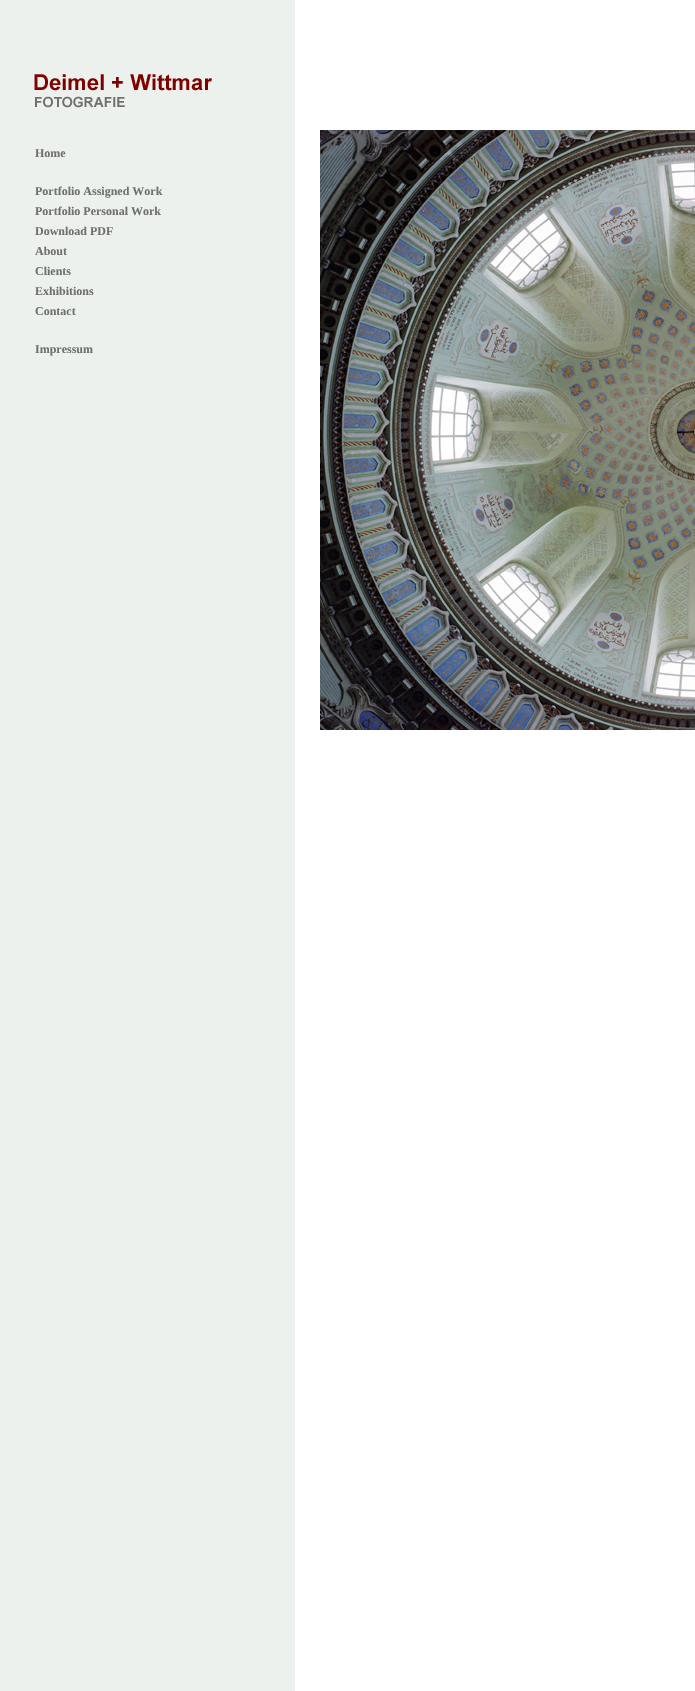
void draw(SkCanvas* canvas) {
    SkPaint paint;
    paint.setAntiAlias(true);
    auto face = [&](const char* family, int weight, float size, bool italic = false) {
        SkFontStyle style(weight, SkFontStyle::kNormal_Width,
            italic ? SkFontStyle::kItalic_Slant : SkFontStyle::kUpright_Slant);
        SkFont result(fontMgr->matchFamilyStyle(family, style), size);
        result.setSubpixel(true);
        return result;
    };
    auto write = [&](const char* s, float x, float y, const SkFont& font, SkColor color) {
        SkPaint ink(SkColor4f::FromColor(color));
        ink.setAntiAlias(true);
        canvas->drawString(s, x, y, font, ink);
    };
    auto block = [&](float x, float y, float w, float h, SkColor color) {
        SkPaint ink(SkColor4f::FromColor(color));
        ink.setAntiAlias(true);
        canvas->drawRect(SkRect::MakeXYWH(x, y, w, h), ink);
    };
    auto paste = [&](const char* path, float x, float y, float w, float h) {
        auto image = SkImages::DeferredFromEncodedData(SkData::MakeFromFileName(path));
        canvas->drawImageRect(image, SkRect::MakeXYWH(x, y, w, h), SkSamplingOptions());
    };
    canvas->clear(SK_ColorWHITE);
    block(0, 0, 295, 1691, SkColorSetRGB(236, 241, 237));
    paste("pic1.png", 34, 74, 178, 34);
    auto kFont1 = face("Liberation Serif", 700, 12);
    write("Home", 35, 157, kFont1, SkColorSetRGB(112, 112, 112));
    write("Portfolio Assigned Work", 35, 195, kFont1, SkColorSetRGB(112, 112, 112));
    write("Portfolio Personal Work", 35, 215, kFont1, SkColorSetRGB(112, 112, 112));
    write("Download PDF", 35, 235, kFont1, SkColorSetRGB(112, 112, 112));
    write("About", 35, 255, kFont1, SkColorSetRGB(112, 112, 112));
    write("Clients", 35, 275, kFont1, SkColorSetRGB(112, 112, 112));
    write("Exhibitions", 35, 295, kFont1, SkColorSetRGB(112, 112, 112));
    write("Contact", 35, 315, kFont1, SkColorSetRGB(112, 112, 112));
    write("Impressum", 35, 353, kFont1, SkColorSetRGB(112, 112, 112));
    paste("pic2.png", 320, 130, 375, 600);
}
